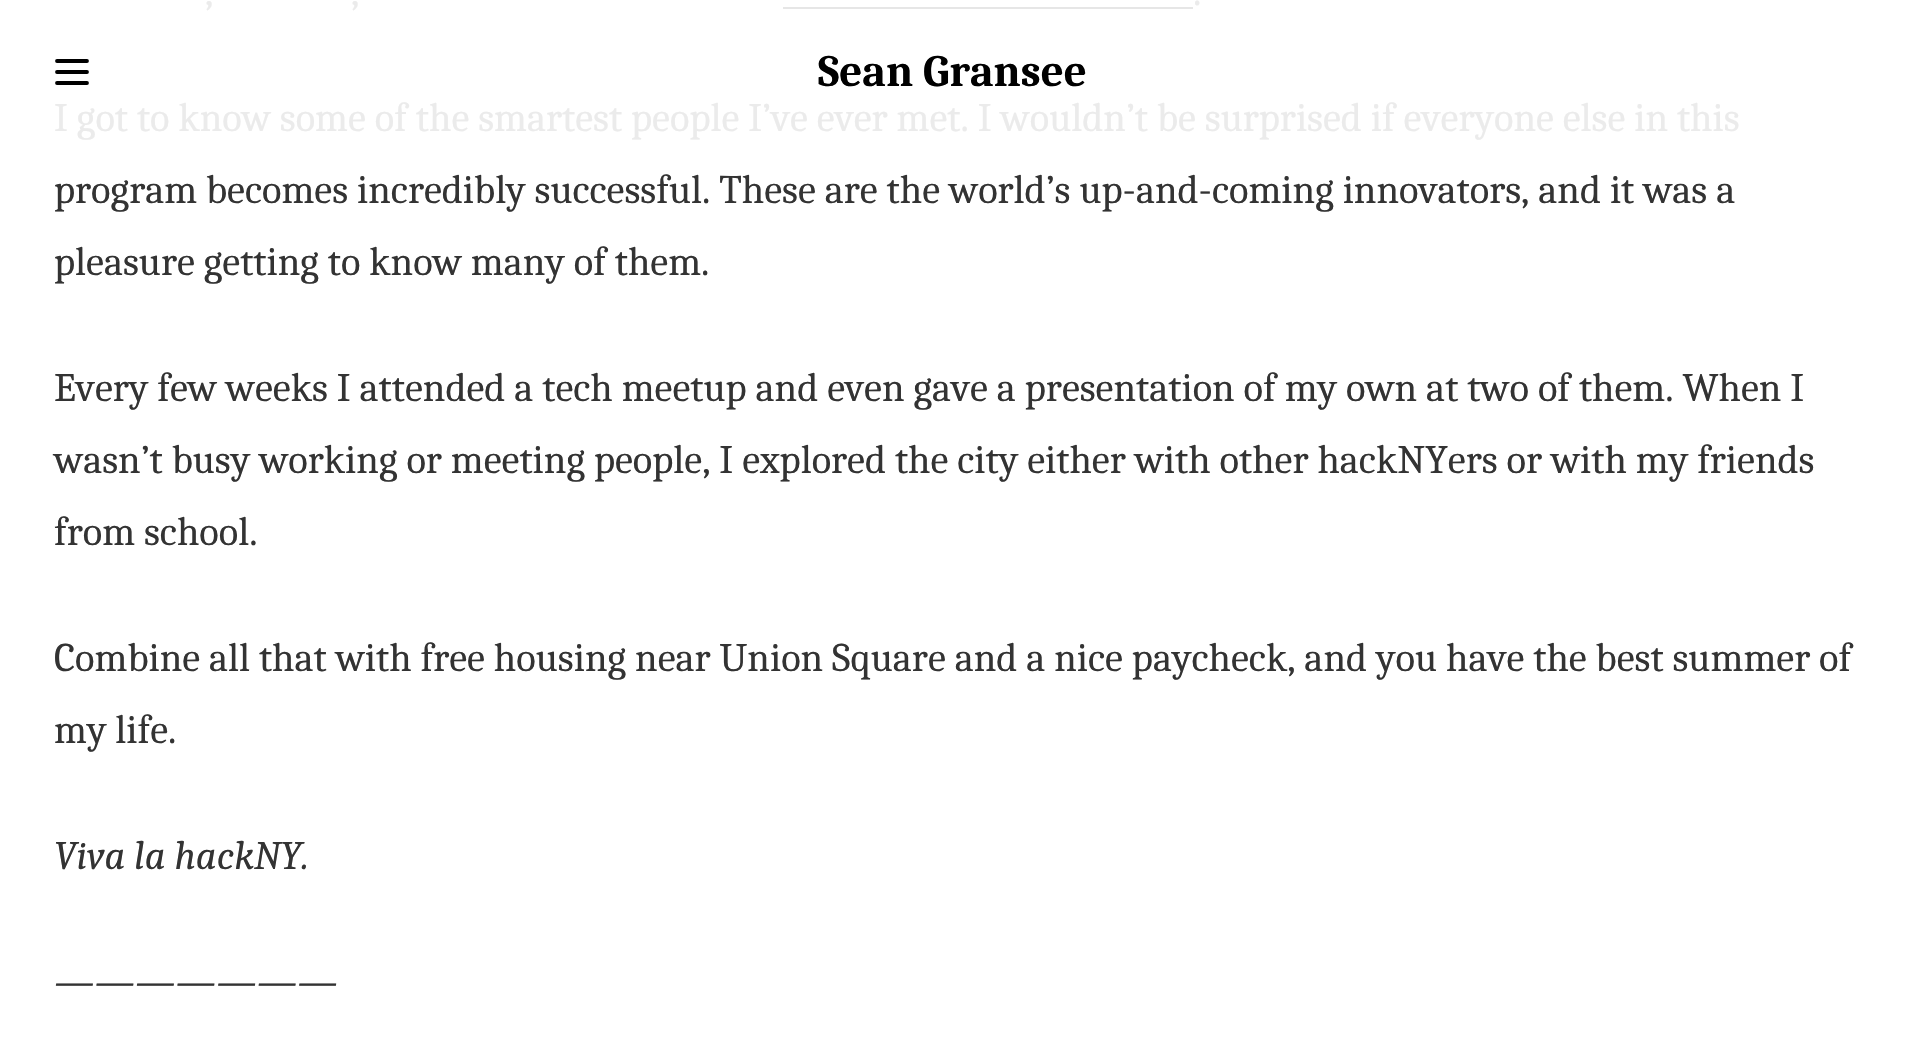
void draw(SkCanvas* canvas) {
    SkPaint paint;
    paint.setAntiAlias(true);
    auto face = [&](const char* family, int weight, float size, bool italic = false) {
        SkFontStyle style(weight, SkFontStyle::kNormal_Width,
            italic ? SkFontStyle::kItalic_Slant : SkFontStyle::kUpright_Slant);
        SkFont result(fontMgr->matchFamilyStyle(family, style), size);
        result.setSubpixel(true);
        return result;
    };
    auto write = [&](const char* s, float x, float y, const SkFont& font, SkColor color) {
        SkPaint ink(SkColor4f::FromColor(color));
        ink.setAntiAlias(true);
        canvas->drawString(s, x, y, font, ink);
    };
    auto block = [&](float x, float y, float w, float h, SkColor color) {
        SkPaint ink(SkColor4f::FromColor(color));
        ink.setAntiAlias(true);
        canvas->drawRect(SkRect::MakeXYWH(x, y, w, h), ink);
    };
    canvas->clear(SK_ColorWHITE);
    auto kFont1 = face("Caladea", 400, 40.5f);
    write(",", 205, 5, kFont1, SkColorSetRGB(235, 235, 235));
    write(",", 351, 5, kFont1, SkColorSetRGB(235, 235, 235));
    block(783, 7, 410, 2, SkColorSetRGB(230, 230, 230));
    write(".", 1193, 5, kFont1, SkColorSetRGB(235, 235, 235));
    write("I got to know some of the smartest people I’ve ever met. I wouldn’t be surprised if everyone else in this", 54, 131, kFont1, SkColorSetRGB(235, 235, 235));
    write("program becomes incredibly successful. These are the world’s up-and-coming innovators, and it was a", 54, 203, kFont1, SkColorSetRGB(51, 51, 51));
    write("pleasure getting to know many of them.", 54, 275, kFont1, SkColorSetRGB(51, 51, 51));
    write("Every few weeks I attended a tech meetup and even gave a presentation of my own at two of them. When I", 54, 401, kFont1, SkColorSetRGB(51, 51, 51));
    write("wasn’t busy working or meeting people, I explored the city either with other hackNYers or with my friends", 54, 473, kFont1, SkColorSetRGB(51, 51, 51));
    write("from school.", 54, 545, kFont1, SkColorSetRGB(51, 51, 51));
    write("Combine all that with free housing near Union Square and a nice paycheck, and you have the best summer of", 54, 671, kFont1, SkColorSetRGB(51, 51, 51));
    write("my life.", 54, 743, kFont1, SkColorSetRGB(51, 51, 51));
    auto kFont2 = face("Caladea", 400, 40.5f, true);
    write("Viva la hackNY.", 54, 869, kFont2, SkColorSetRGB(51, 51, 51));
    write("———————", 54, 995, kFont2, SkColorSetRGB(51, 51, 51));
    paint.setStyle(SkPaint::kStroke_Style);
    paint.setStrokeWidth(3.8f);
    paint.setStrokeCap(SkPaint::kRound_Cap);
    paint.setStrokeJoin(SkPaint::kRound_Join);
    paint.setColor(SK_ColorBLACK);
    canvas->drawPath(SkPathBuilder().moveTo(57, 61).lineTo(87, 61).moveTo(57, 72).lineTo(87, 72).moveTo(57, 83).lineTo(87, 83).detach(), paint);
    auto kFont3 = face("Caladea", 700, 45);
    write("Sean Gransee", 818, 86, kFont3, SK_ColorBLACK);
}
